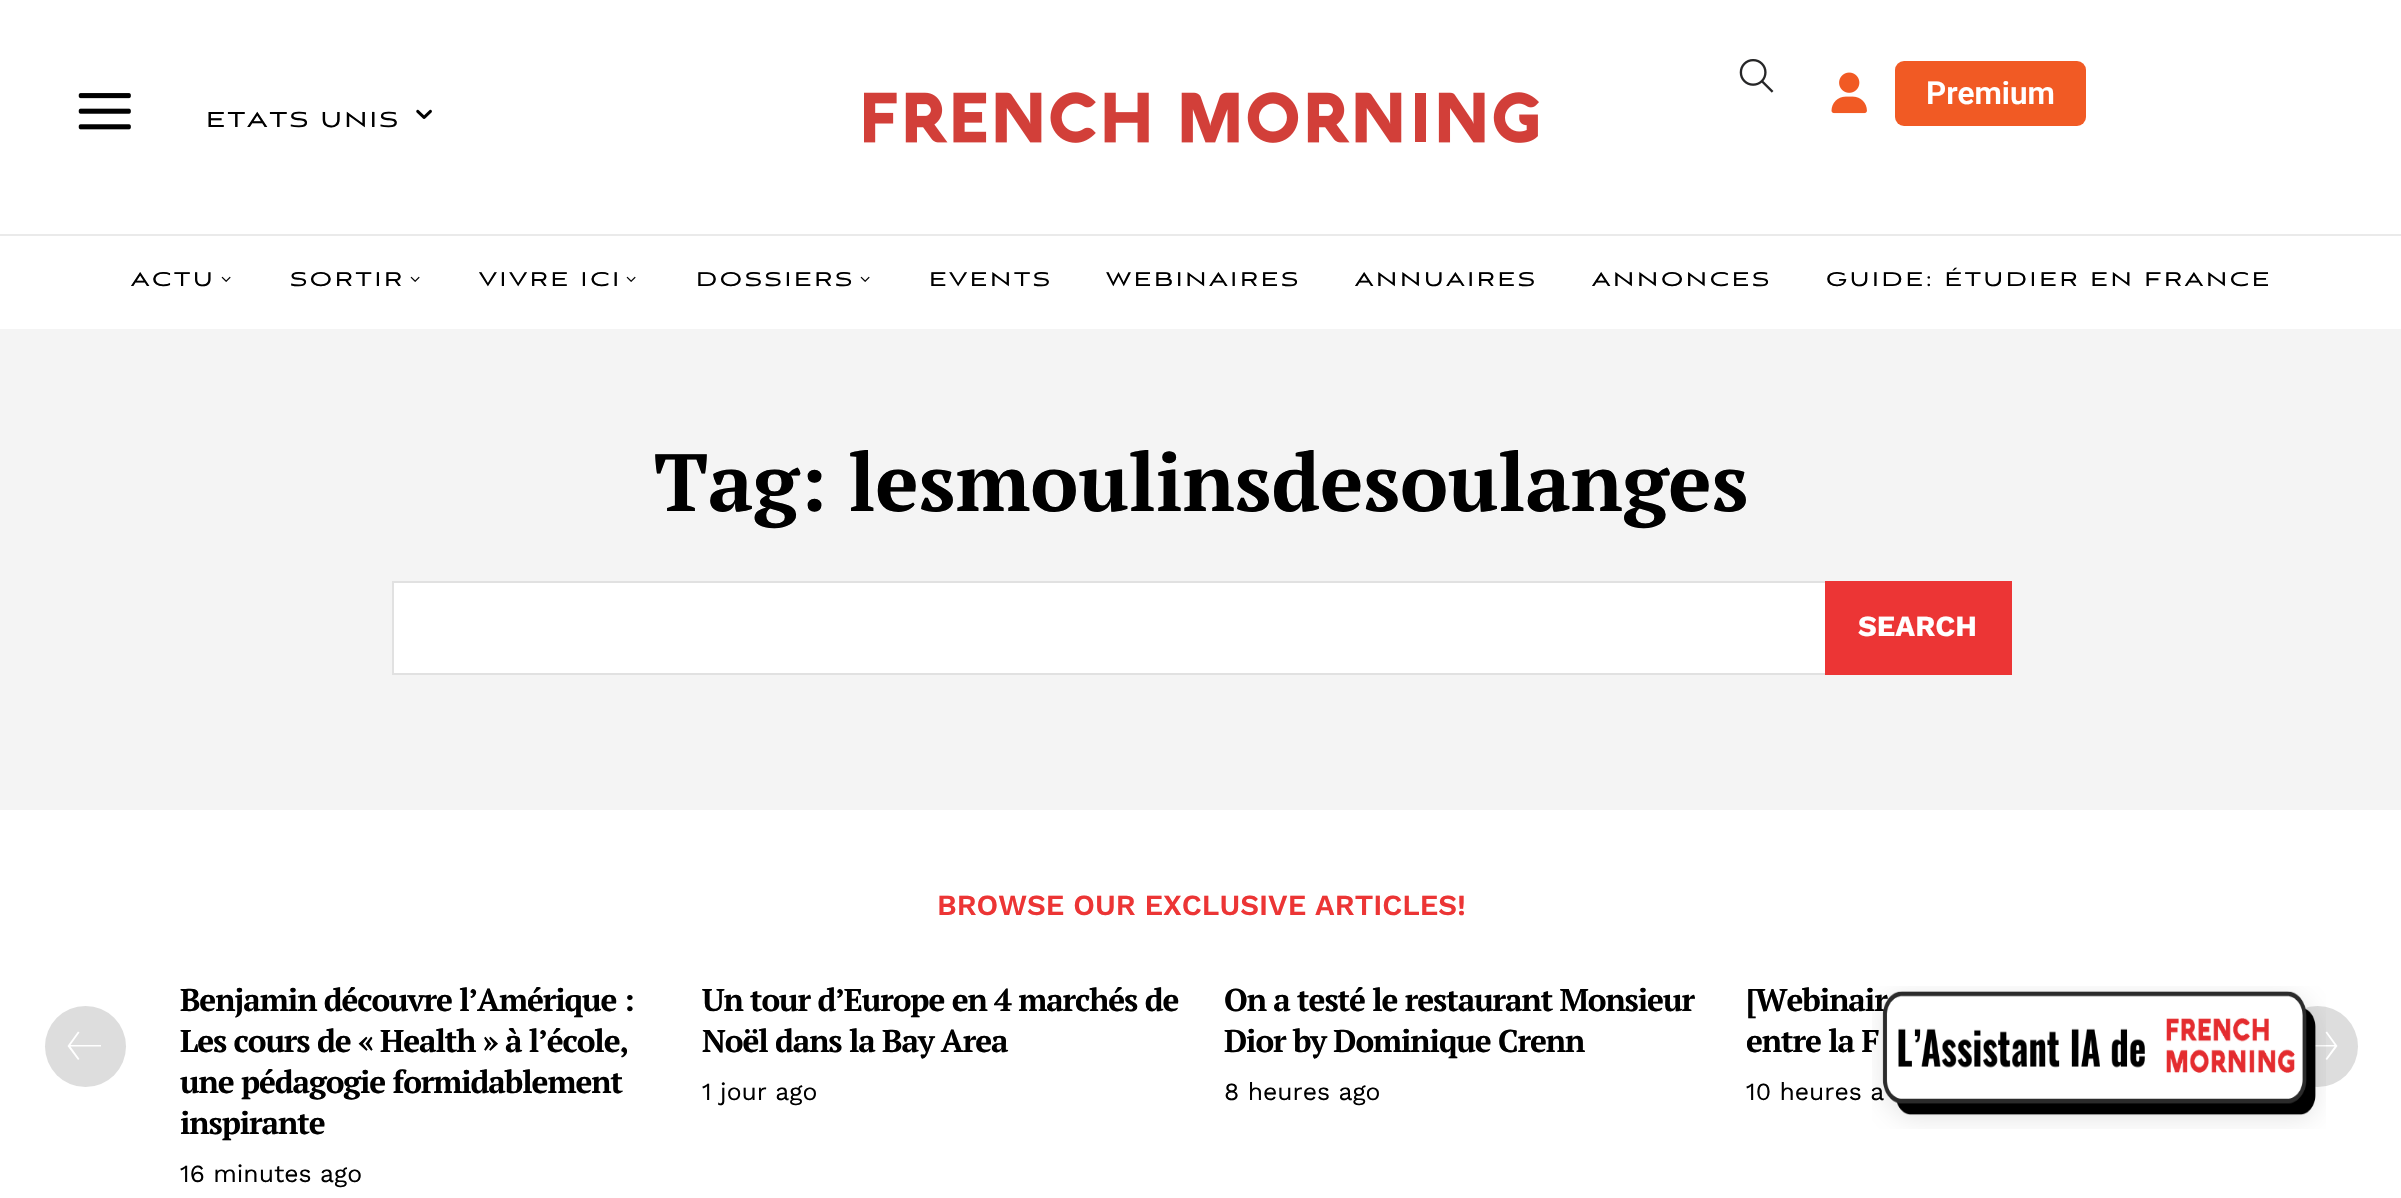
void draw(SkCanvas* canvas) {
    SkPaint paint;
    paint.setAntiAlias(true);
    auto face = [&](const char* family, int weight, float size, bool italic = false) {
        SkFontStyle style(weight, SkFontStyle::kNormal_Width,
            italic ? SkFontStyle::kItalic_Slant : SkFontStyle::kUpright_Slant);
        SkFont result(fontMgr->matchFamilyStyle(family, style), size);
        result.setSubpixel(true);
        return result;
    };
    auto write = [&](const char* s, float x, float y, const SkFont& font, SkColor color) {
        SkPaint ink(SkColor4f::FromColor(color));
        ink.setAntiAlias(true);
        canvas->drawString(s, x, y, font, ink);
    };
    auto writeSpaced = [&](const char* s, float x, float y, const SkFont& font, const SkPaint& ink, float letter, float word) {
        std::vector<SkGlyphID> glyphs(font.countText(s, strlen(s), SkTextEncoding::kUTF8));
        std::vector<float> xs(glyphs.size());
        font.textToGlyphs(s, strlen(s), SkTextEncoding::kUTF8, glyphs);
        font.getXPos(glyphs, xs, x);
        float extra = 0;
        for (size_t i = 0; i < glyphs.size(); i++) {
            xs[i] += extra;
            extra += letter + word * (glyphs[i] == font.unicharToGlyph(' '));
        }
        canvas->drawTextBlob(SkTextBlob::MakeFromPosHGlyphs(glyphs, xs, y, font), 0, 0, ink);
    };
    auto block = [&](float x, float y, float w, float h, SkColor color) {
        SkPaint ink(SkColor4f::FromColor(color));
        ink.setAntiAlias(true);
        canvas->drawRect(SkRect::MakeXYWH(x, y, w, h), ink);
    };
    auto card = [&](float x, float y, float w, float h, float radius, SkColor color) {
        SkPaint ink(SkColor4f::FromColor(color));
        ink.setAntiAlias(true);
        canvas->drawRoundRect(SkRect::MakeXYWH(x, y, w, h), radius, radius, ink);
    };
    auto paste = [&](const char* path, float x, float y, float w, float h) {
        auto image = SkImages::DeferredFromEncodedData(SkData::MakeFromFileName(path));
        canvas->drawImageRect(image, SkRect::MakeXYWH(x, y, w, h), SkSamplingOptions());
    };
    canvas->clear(SK_ColorWHITE);
    paste("pic1.png", 78, 93, 53, 37);
    auto kFont1 = face("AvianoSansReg", 400, 27);
    paint.setColor(SK_ColorBLACK);
    writeSpaced("ETATS UNIS", 206, 127, kFont1, paint, 2.25f, 0);
    paste("pic2.png", 416, 109, 16, 10);
    paste("pic3.png", 864, 92, 675, 51);
    paste("pic4.png", 1739, 59, 35, 34);
    paste("pic5.png", 1831, 72, 36, 42);
    card(1895, 61, 191, 65, 9, SkColorSetRGB(241, 90, 36));
    auto kFont2 = face("Roboto", 600, 31.5f);
    write("Premium", 1926, 104, kFont2, SK_ColorWHITE);
    block(0, 234, 2401, 2, SkColorSetRGB(234, 234, 234));
    auto kFont3 = face("AvianoSansReg", 400, 24.75f);
    writeSpaced("ACTU", 131, 286, kFont3, paint, 2.7f, 0);
    paste("pic6.png", 221, 276, 10, 6);
    writeSpaced("SORTIR", 290, 286, kFont3, paint, 2.7f, 0);
    paste("pic6.png", 410, 276, 10, 6);
    writeSpaced("VIVRE ICI", 479, 286, kFont3, paint, 2.7f, 0);
    paste("pic6.png", 626, 276, 10, 6);
    writeSpaced("DOSSIERS", 696, 286, kFont3, paint, 2.7f, 0);
    paste("pic6.png", 860, 276, 10, 6);
    writeSpaced("EVENTS", 929, 286, kFont3, paint, 2.7f, 0);
    writeSpaced("WEBINAIRES", 1106, 286, kFont3, paint, 2.7f, 0);
    writeSpaced("ANNUAIRES", 1355, 286, kFont3, paint, 2.7f, 0);
    writeSpaced("ANNONCES", 1592, 286, kFont3, paint, 2.7f, 0);
    writeSpaced("GUIDE: ÉTUDIER EN FRANCE", 1826, 286, kFont3, paint, 2.7f, 0);
    block(0, 329, 2401, 481, SkColorSetRGB(244, 244, 244));
    auto kFont4 = face("PT Serif", 700, 81);
    write("Tag: lesmoulinsdesoulanges", 654, 511, kFont4, SK_ColorBLACK);
    block(394, 583, 1431, 90, SK_ColorWHITE);
    paint.setStyle(SkPaint::kStroke_Style);
    paint.setStrokeWidth(2);
    paint.setColor(SkColorSetRGB(225, 225, 225));
    canvas->drawRect(SkRect::MakeXYWH(393, 582, 1618, 92), paint);
    block(1825, 581, 187, 94, SkColorSetRGB(236, 53, 53));
    auto kFont5 = face("Work Sans", 700, 29.25f);
    write("SEARCH", 1858, 636, kFont5, SK_ColorWHITE);
    auto kFont6 = face("Work Sans", 600, 29.25f);
    write("BROWSE OUR EXCLUSIVE ARTICLES!", 937, 915, kFont6, SkColorSetRGB(236, 53, 53));
    auto kFont7 = face("PT Serif", 700, 31.5f);
    paint.setStyle(SkPaint::kFill_Style);
    paint.setColor(SK_ColorBLACK);
    writeSpaced("Benjamin découvre l’Amérique :", 180, 1011, kFont7, paint, -1.1f, 0);
    writeSpaced("Les cours de « Health » à l’école,", 180, 1052, kFont7, paint, -1.1f, 0);
    writeSpaced("une pédagogie formidablement", 180, 1093, kFont7, paint, -1.1f, 0);
    writeSpaced("inspirante", 180, 1134, kFont7, paint, -1.1f, 0);
    auto kFont8 = face("Work Sans", 400, 24.75f);
    write("16 minutes ago", 180, 1182, kFont8, SK_ColorBLACK);
    writeSpaced("Un tour d’Europe en 4 marchés de", 702, 1011, kFont7, paint, -1.1f, 0);
    writeSpaced("Noël dans la Bay Area", 702, 1052, kFont7, paint, -1.1f, 0);
    write("1 jour ago", 702, 1100, kFont8, SK_ColorBLACK);
    writeSpaced("On a testé le restaurant Monsieur", 1224, 1011, kFont7, paint, -1.1f, 0);
    writeSpaced("Dior by Dominique Crenn", 1224, 1052, kFont7, paint, -1.1f, 0);
    write("8 heures ago", 1224, 1100, kFont8, SK_ColorBLACK);
    writeSpaced("[Webinair", 1746, 1011, kFont7, paint, -1.1f, 0);
    writeSpaced("entre la F", 1746, 1052, kFont7, paint, -1.1f, 0);
    write("10 heures a", 1746, 1100, kFont8, SK_ColorBLACK);
    paint.setColor(SkColorSetRGB(221, 221, 221));
    canvas->drawCircle(85.5f, 1046.5f, 40.5f, paint);
    paint.setColor(SK_ColorWHITE);
    canvas->drawPath(SkPathBuilder().moveTo(79.5f, 1059).lineTo(70.5f, 1046.5f).lineTo(101, 1046.5f).lineTo(101, 1045).lineTo(70.5f, 1045).lineTo(79.5f, 1032.5f).lineTo(78, 1031.5f).lineTo(67.5f, 1046).lineTo(78, 1060).close().detach(), paint);
    paint.setColor(SkColorSetRGB(221, 221, 221));
    canvas->drawCircle(2317.5f, 1046.5f, 40.5f, paint);
    paint.setColor(SK_ColorWHITE);
    canvas->drawPath(SkPathBuilder().moveTo(2325.5f, 1059).lineTo(2327, 1060).lineTo(2337.5f, 1046).lineTo(2327, 1031.5f).lineTo(2325.5f, 1032.5f).lineTo(2334.5f, 1045).lineTo(2304, 1045).lineTo(2304, 1046.5f).lineTo(2334.5f, 1046.5f).close().detach(), paint);
    paste("pic7.png", 1872, 986, 454, 143);
}
